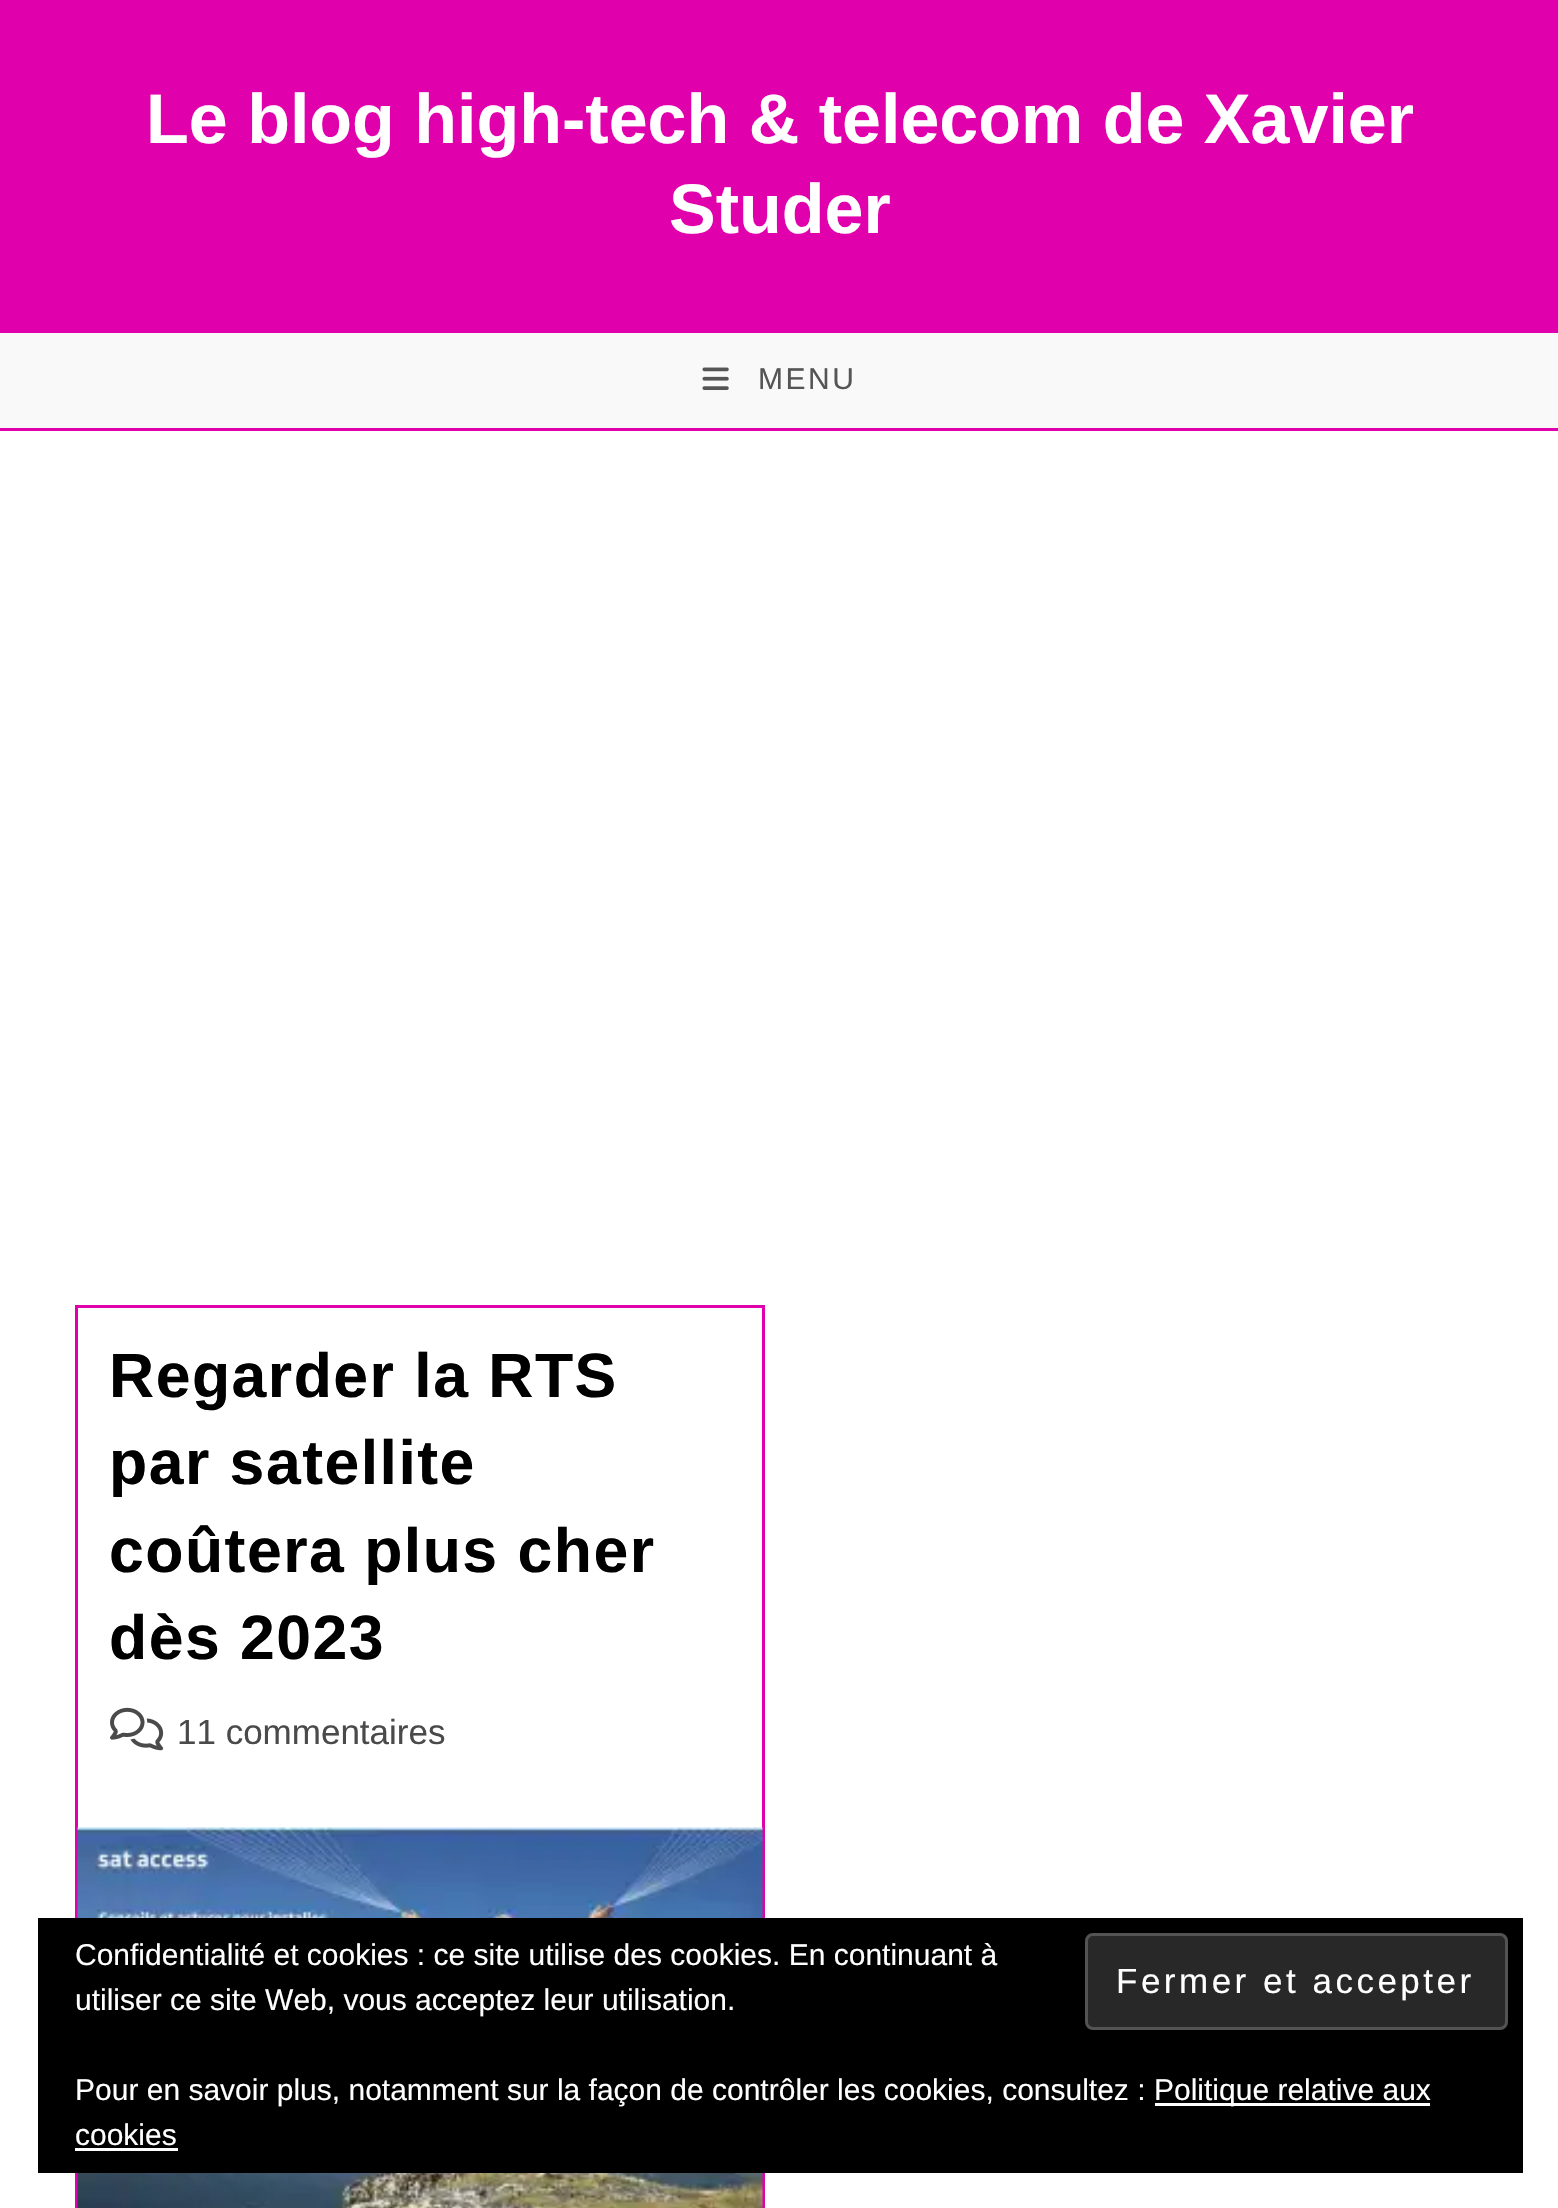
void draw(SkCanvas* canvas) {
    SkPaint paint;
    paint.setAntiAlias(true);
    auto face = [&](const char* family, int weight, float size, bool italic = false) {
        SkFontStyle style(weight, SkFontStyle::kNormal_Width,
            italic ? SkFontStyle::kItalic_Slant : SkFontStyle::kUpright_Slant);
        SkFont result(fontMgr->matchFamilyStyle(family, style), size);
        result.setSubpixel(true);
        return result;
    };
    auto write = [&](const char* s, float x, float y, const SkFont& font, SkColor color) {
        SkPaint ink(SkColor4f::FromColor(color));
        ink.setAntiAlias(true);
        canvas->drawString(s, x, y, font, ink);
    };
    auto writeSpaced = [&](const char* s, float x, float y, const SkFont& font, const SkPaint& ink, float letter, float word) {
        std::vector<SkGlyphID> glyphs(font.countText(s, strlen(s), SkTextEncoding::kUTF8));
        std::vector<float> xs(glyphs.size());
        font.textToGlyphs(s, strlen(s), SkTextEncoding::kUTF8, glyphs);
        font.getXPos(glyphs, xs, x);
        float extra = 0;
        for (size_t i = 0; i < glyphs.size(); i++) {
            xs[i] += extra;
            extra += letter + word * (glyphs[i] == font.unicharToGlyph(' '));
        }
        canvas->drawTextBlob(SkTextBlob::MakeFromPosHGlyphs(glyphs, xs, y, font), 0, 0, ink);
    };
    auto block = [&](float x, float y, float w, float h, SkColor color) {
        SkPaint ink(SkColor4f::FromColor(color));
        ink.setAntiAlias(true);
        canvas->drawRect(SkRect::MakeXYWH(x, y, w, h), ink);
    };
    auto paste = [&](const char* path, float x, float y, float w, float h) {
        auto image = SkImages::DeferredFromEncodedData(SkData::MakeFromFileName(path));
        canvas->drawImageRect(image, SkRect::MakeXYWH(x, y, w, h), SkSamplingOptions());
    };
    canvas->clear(SK_ColorWHITE);
    block(0, 428, 1558, 3, SkColorSetRGB(224, 0, 172));
    block(0, 0, 1558, 333, SkColorSetRGB(224, 0, 172));
    auto kFont1 = face("Liberation Sans", 700, 70);
    write("Le blog high-tech & telecom de Xavier", 146, 143, kFont1, SK_ColorWHITE);
    write("Studer", 669, 233, kFont1, SK_ColorWHITE);
    block(0, 333, 1558, 95, SkColorSetRGB(249, 249, 249));
    paste("pic1.png", 702, 367, 27, 23);
    auto kFont2 = face("Liberation Sans", 400, 30);
    paint.setColor(SkColorSetRGB(85, 85, 85));
    writeSpaced("MENU", 758, 389, kFont2, paint, 2.5f, 0);
    paint.setStyle(SkPaint::kStroke_Style);
    paint.setStrokeWidth(3);
    paint.setColor(SkColorSetRGB(224, 0, 172));
    canvas->drawRect(SkRect::MakeXYWH(76.5f, 1306.5f, 687, 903), paint);
    auto kFont3 = face("Liberation Sans", 700, 62.5f);
    paint.setStyle(SkPaint::kFill_Style);
    paint.setColor(SK_ColorBLACK);
    writeSpaced("Regarder la RTS", 109, 1397, kFont3, paint, 1.5f, 0);
    writeSpaced("par satellite", 109, 1484, kFont3, paint, 1.5f, 0);
    writeSpaced("coûtera plus cher", 109, 1572, kFont3, paint, 1.5f, 0);
    writeSpaced("dès 2023", 109, 1659, kFont3, paint, 1.5f, 0);
    paste("pic2.png", 110, 1707, 54, 44);
    auto kFont4 = face("Liberation Sans", 400, 35);
    write("11 commentaires", 177, 1744, kFont4, SkColorSetRGB(74, 74, 74));
    paste("pic3.png", 77, 1827, 686, 381);
    block(38, 1918, 1485, 255, SK_ColorBLACK);
    write("Confidentialité et cookies : ce site utilise des cookies. En continuant à", 75, 1965, kFont2, SK_ColorWHITE);
    write("utiliser ce site Web, vous acceptez leur utilisation.", 75, 2010, kFont2, SK_ColorWHITE);
    paint.setColor(SkColorSetRGB(40, 40, 40));
    canvas->drawRoundRect(SkRect::MakeXYWH(1086.5f, 1934.5f, 420, 94), 6.5f, 6.5f, paint);
    paint.setStyle(SkPaint::kStroke_Style);
    paint.setColor(SkColorSetRGB(83, 83, 83));
    canvas->drawRoundRect(SkRect::MakeXYWH(1086.5f, 1934.5f, 420, 94), 6.5f, 6.5f, paint);
    paint.setStyle(SkPaint::kFill_Style);
    paint.setColor(SK_ColorWHITE);
    writeSpaced("Fermer et accepter", 1116, 1993, kFont4, paint, 3.5f, 0);
    write("Pour en savoir plus, notamment sur la façon de contrôler les cookies, consultez :", 75, 2100, kFont2, SK_ColorWHITE);
    block(1155, 2103, 275, 3, SK_ColorWHITE);
    write("Politique relative aux", 1154, 2100, kFont2, SK_ColorWHITE);
    write("cookies", 75, 2145, kFont2, SK_ColorWHITE);
    block(75, 2148, 103, 3, SK_ColorWHITE);
}
